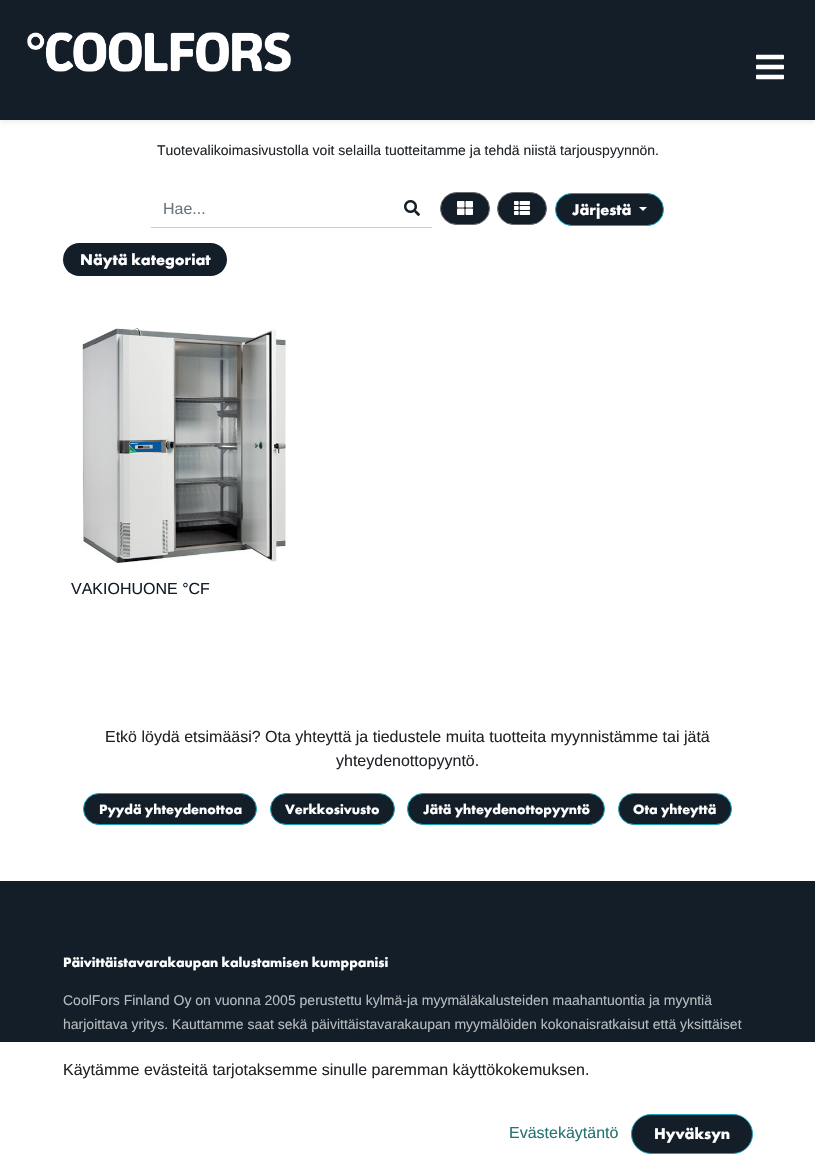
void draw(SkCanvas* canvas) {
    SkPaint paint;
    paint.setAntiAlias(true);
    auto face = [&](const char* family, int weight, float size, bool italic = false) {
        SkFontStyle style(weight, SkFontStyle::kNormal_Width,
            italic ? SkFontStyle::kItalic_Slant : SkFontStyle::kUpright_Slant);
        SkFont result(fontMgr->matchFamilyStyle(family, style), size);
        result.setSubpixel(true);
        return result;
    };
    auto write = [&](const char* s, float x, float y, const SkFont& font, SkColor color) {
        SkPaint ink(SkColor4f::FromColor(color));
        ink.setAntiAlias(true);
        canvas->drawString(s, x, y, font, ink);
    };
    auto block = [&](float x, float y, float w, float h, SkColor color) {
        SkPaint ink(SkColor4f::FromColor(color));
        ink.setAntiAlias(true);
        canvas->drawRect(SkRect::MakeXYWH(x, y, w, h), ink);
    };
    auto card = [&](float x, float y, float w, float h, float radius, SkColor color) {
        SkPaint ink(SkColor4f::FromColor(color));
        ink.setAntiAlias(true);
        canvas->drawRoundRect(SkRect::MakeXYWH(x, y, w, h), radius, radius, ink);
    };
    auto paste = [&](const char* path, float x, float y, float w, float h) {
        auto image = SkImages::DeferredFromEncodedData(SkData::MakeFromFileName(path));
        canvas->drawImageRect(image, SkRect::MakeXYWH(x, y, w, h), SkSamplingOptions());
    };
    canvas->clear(SK_ColorWHITE);
    paint.setColor(SkColorSetARGB(18, 0, 0, 0));
    paint.setMaskFilter(SkMaskFilter::MakeBlur(kNormal_SkBlurStyle, 2));
    canvas->drawRect(SkRect::MakeXYWH(0, 2, 815, 120), paint);
    paint.setMaskFilter(nullptr);
    block(0, 0, 815, 120, SkColorSetRGB(19, 30, 41));
    paste("pic1.png", 27, 32, 264, 40);
    paste("pic2.png", 756, 54, 28, 26);
    auto kFont1 = face("Liberation Sans", 400, 14);
    write("Tuotevalikoimasivustolla voit selailla tuotteitamme ja tehdä niistä tarjouspyynnön.", 157, 155, kFont1, SkColorSetRGB(33, 37, 41));
    block(151, 227, 281, 1, SkColorSetRGB(204, 204, 204));
    auto kFont2 = face("Liberation Sans", 400, 16);
    write("Hae...", 163, 214, kFont2, SkColorSetRGB(108, 117, 125));
    paste("pic3.png", 404, 200, 16, 16);
    paint.setColor(SkColorSetRGB(19, 30, 41));
    canvas->drawRoundRect(SkRect::MakeXYWH(440.5f, 192.5f, 49, 32), 16, 16, paint);
    paint.setStyle(SkPaint::kStroke_Style);
    paint.setStrokeWidth(1);
    paint.setColor(SkColorSetRGB(106, 107, 107));
    canvas->drawRoundRect(SkRect::MakeXYWH(440.5f, 192.5f, 49, 32), 16, 16, paint);
    paste("pic4.png", 457, 201, 16, 14);
    paint.setStyle(SkPaint::kFill_Style);
    paint.setColor(SkColorSetRGB(19, 30, 41));
    canvas->drawRoundRect(SkRect::MakeXYWH(497.5f, 192.5f, 49, 32), 16, 16, paint);
    paint.setStyle(SkPaint::kStroke_Style);
    paint.setColor(SkColorSetRGB(106, 107, 107));
    canvas->drawRoundRect(SkRect::MakeXYWH(497.5f, 192.5f, 49, 32), 16, 16, paint);
    paste("pic5.png", 514, 201, 16, 14);
    paint.setStyle(SkPaint::kFill_Style);
    paint.setColor(SkColorSetRGB(19, 30, 41));
    canvas->drawRoundRect(SkRect::MakeXYWH(555.5f, 193.5f, 108, 32), 16, 16, paint);
    paint.setStyle(SkPaint::kStroke_Style);
    paint.setColor(SkColorSetRGB(23, 162, 184));
    canvas->drawRoundRect(SkRect::MakeXYWH(555.5f, 193.5f, 108, 32), 16, 16, paint);
    auto kFont3 = face("Futura PT", 700, 16);
    write("Järjestä", 572, 215, kFont3, SK_ColorWHITE);
    paint.setStyle(SkPaint::kFill_Style);
    paint.setColor(SK_ColorWHITE);
    canvas->drawPath(SkPathBuilder().moveTo(639, 207).lineTo(647, 207).lineTo(643, 211).close().detach(), paint);
    card(63, 243, 164, 33, 16.5f, SkColorSetRGB(19, 30, 41));
    write("Näytä kategoriat", 80, 265, kFont3, SK_ColorWHITE);
    paste("pic6.png", 82, 327, 204, 236);
    write("VAKIOHUONE °CF", 71, 594, kFont2, SkColorSetRGB(19, 30, 41));
    write("Etkö löydä etsimääsi? Ota yhteyttä ja tiedustele muita tuotteita myynnistämme tai jätä", 105, 742, kFont2, SkColorSetRGB(33, 37, 41));
    write("yhteydenottopyyntö.", 336, 766, kFont2, SkColorSetRGB(33, 37, 41));
    paint.setColor(SkColorSetRGB(19, 30, 41));
    canvas->drawRoundRect(SkRect::MakeXYWH(83.5f, 793.5f, 173, 31), 15.5f, 15.5f, paint);
    paint.setStyle(SkPaint::kStroke_Style);
    paint.setColor(SkColorSetRGB(23, 162, 184));
    canvas->drawRoundRect(SkRect::MakeXYWH(83.5f, 793.5f, 173, 31), 15.5f, 15.5f, paint);
    auto kFont4 = face("Futura PT", 700, 14);
    write("Pyydä yhteydenottoa", 99, 814, kFont4, SK_ColorWHITE);
    paint.setStyle(SkPaint::kFill_Style);
    paint.setColor(SkColorSetRGB(19, 30, 41));
    canvas->drawRoundRect(SkRect::MakeXYWH(270.5f, 793.5f, 124, 31), 15.5f, 15.5f, paint);
    paint.setStyle(SkPaint::kStroke_Style);
    paint.setColor(SkColorSetRGB(23, 162, 184));
    canvas->drawRoundRect(SkRect::MakeXYWH(270.5f, 793.5f, 124, 31), 15.5f, 15.5f, paint);
    write("Verkkosivusto", 285, 814, kFont4, SK_ColorWHITE);
    paint.setStyle(SkPaint::kFill_Style);
    paint.setColor(SkColorSetRGB(19, 30, 41));
    canvas->drawRoundRect(SkRect::MakeXYWH(407.5f, 793.5f, 197, 31), 15.5f, 15.5f, paint);
    paint.setStyle(SkPaint::kStroke_Style);
    paint.setColor(SkColorSetRGB(23, 162, 184));
    canvas->drawRoundRect(SkRect::MakeXYWH(407.5f, 793.5f, 197, 31), 15.5f, 15.5f, paint);
    write("Jätä yhteydenottopyyntö", 423, 814, kFont4, SK_ColorWHITE);
    paint.setStyle(SkPaint::kFill_Style);
    paint.setColor(SkColorSetRGB(19, 30, 41));
    canvas->drawRoundRect(SkRect::MakeXYWH(618.5f, 793.5f, 113, 31), 15.5f, 15.5f, paint);
    paint.setStyle(SkPaint::kStroke_Style);
    paint.setColor(SkColorSetRGB(23, 162, 184));
    canvas->drawRoundRect(SkRect::MakeXYWH(618.5f, 793.5f, 113, 31), 15.5f, 15.5f, paint);
    write("Ota yhteyttä", 633, 814, kFont4, SK_ColorWHITE);
    block(0, 881, 815, 161, SkColorSetRGB(19, 30, 41));
    write("Päivittäistavarakaupan kalustamisen kumppanisi", 63, 967, kFont4, SK_ColorWHITE);
    write("CoolFors Finland Oy on vuonna 2005 perustettu kylmä-ja myymäläkalusteiden maahantuontia ja myyntiä", 63, 1005, kFont1, SkColorSetRGB(184, 188, 191));
    write("harjoittava yritys. Kauttamme saat sekä päivittäistavarakaupan myymälöiden kokonaisratkaisut että yksittäiset", 63, 1029, kFont1, SkColorSetRGB(184, 188, 191));
    write("Käytämme evästeitä tarjotaksemme sinulle paremman käyttökokemuksen.", 63, 1075, kFont2, SkColorSetRGB(33, 37, 41));
    write("Evästekäytäntö", 509, 1138, kFont2, SkColorSetRGB(38, 115, 114));
    paint.setStyle(SkPaint::kFill_Style);
    paint.setColor(SkColorSetRGB(19, 30, 41));
    canvas->drawRoundRect(SkRect::MakeXYWH(631.5f, 1114.5f, 121, 39), 19.5f, 19.5f, paint);
    paint.setStyle(SkPaint::kStroke_Style);
    paint.setColor(SkColorSetRGB(23, 162, 184));
    canvas->drawRoundRect(SkRect::MakeXYWH(631.5f, 1114.5f, 121, 39), 19.5f, 19.5f, paint);
    write("Hyväksyn", 654, 1139, kFont3, SK_ColorWHITE);
}
